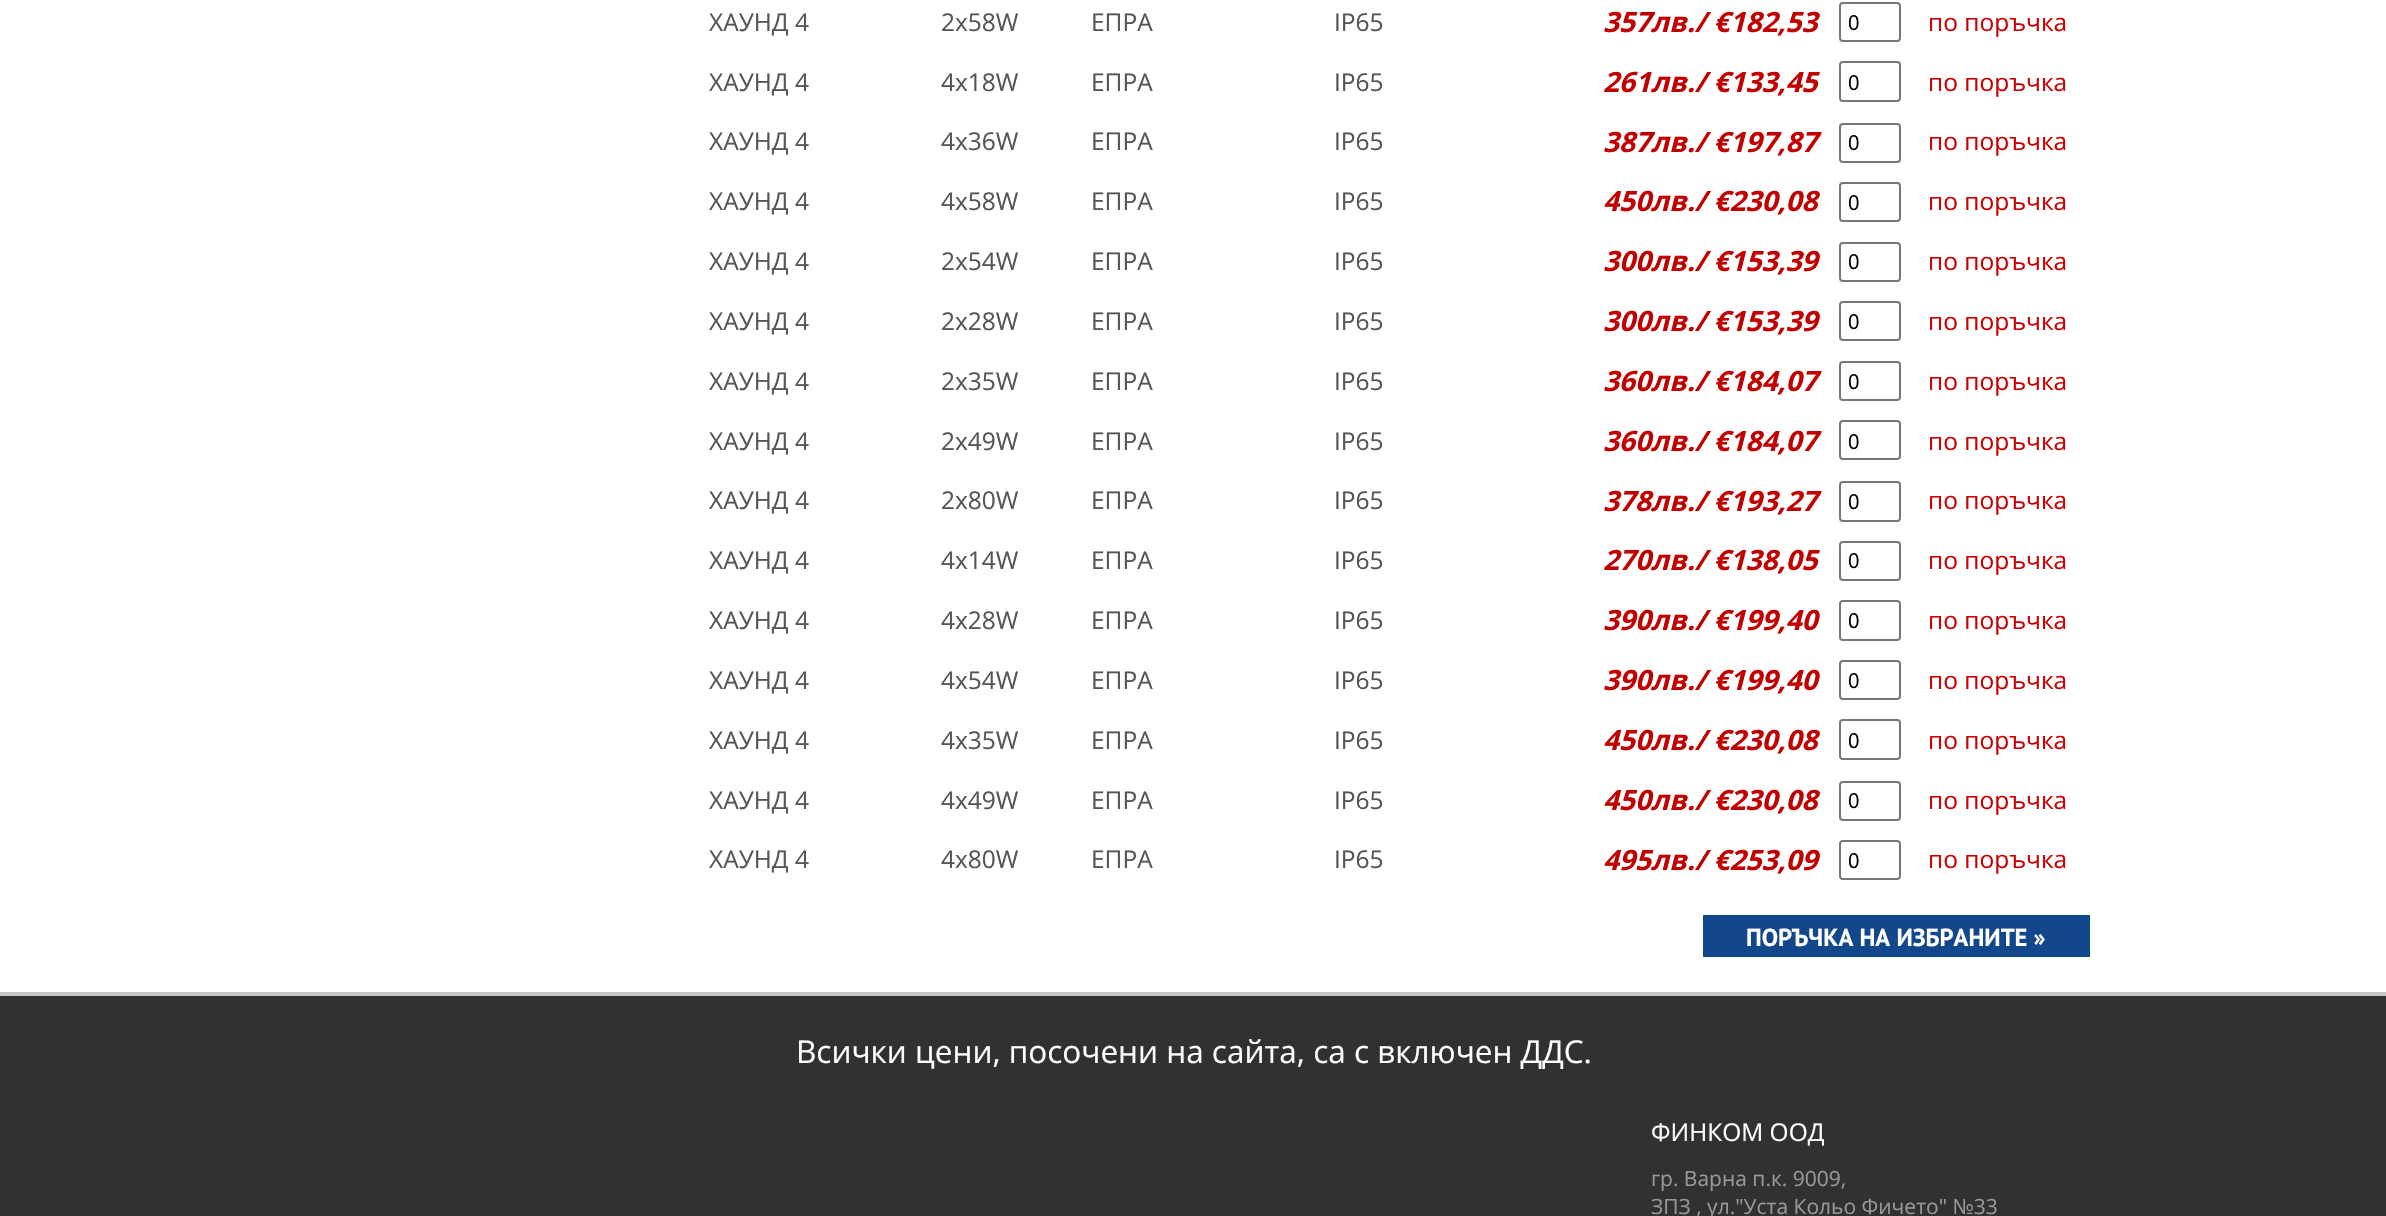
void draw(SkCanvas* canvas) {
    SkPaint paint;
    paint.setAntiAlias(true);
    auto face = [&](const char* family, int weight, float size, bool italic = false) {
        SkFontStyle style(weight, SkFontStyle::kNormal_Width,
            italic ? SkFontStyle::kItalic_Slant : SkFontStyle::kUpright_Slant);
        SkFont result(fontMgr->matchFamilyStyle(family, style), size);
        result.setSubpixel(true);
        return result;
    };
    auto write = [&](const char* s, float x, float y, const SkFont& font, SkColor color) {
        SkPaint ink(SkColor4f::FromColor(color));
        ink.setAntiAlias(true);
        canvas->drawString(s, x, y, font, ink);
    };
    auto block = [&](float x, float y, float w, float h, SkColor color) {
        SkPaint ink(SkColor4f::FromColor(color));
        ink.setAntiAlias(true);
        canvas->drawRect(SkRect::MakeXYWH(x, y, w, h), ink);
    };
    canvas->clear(SK_ColorWHITE);
    auto kFont1 = face("Open Sans", 400, 24.5f);
    write("ХАУНД 4", 709, 31, kFont1, SkColorSetRGB(85, 85, 85));
    write("2x58W", 941, 31, kFont1, SkColorSetRGB(85, 85, 85));
    write("ЕПРА", 1091, 31, kFont1, SkColorSetRGB(85, 85, 85));
    write("IP65", 1334, 31, kFont1, SkColorSetRGB(85, 85, 85));
    auto kFont2 = face("Open Sans", 700, 28, true);
    write("357лв./ €182,53", 1603, 32, kFont2, SkColorSetRGB(194, 0, 0));
    paint.setStyle(SkPaint::kStroke_Style);
    paint.setStrokeWidth(2);
    paint.setColor(SkColorSetRGB(118, 118, 118));
    canvas->drawRoundRect(SkRect::MakeXYWH(1840, 3, 60, 38), 3, 3, paint);
    auto kFont3 = face("PT Sans", 400, 21);
    write("0", 1848, 30, kFont3, SK_ColorBLACK);
    write("по поръчка", 1928, 31, kFont1, SkColorSetRGB(204, 0, 0));
    write("ХАУНД 4", 709, 91, kFont1, SkColorSetRGB(85, 85, 85));
    write("4x18W", 941, 91, kFont1, SkColorSetRGB(85, 85, 85));
    write("ЕПРА", 1091, 91, kFont1, SkColorSetRGB(85, 85, 85));
    write("IP65", 1334, 91, kFont1, SkColorSetRGB(85, 85, 85));
    write("261лв./ €133,45", 1603, 92, kFont2, SkColorSetRGB(194, 0, 0));
    canvas->drawRoundRect(SkRect::MakeXYWH(1840, 62, 60, 39), 3, 3, paint);
    write("0", 1848, 90, kFont3, SK_ColorBLACK);
    write("по поръчка", 1928, 91, kFont1, SkColorSetRGB(204, 0, 0));
    write("ХАУНД 4", 709, 150, kFont1, SkColorSetRGB(85, 85, 85));
    write("4x36W", 941, 150, kFont1, SkColorSetRGB(85, 85, 85));
    write("ЕПРА", 1091, 150, kFont1, SkColorSetRGB(85, 85, 85));
    write("IP65", 1334, 150, kFont1, SkColorSetRGB(85, 85, 85));
    write("387лв./ €197,87", 1603, 152, kFont2, SkColorSetRGB(194, 0, 0));
    canvas->drawRoundRect(SkRect::MakeXYWH(1840, 124, 60, 38), 3, 3, paint);
    write("0", 1848, 150, kFont3, SK_ColorBLACK);
    write("по поръчка", 1928, 150, kFont1, SkColorSetRGB(204, 0, 0));
    write("ХАУНД 4", 709, 210, kFont1, SkColorSetRGB(85, 85, 85));
    write("4х58W", 941, 210, kFont1, SkColorSetRGB(85, 85, 85));
    write("ЕПРА", 1091, 210, kFont1, SkColorSetRGB(85, 85, 85));
    write("IP65", 1334, 210, kFont1, SkColorSetRGB(85, 85, 85));
    write("450лв./ €230,08", 1603, 211, kFont2, SkColorSetRGB(194, 0, 0));
    canvas->drawRoundRect(SkRect::MakeXYWH(1840, 183, 60, 38), 3, 3, paint);
    write("0", 1848, 210, kFont3, SK_ColorBLACK);
    write("по поръчка", 1928, 210, kFont1, SkColorSetRGB(204, 0, 0));
    write("ХАУНД 4", 709, 270, kFont1, SkColorSetRGB(85, 85, 85));
    write("2x54W", 941, 270, kFont1, SkColorSetRGB(85, 85, 85));
    write("ЕПРА", 1091, 270, kFont1, SkColorSetRGB(85, 85, 85));
    write("IP65", 1334, 270, kFont1, SkColorSetRGB(85, 85, 85));
    write("300лв./ €153,39", 1603, 271, kFont2, SkColorSetRGB(194, 0, 0));
    canvas->drawRoundRect(SkRect::MakeXYWH(1840, 243, 60, 38), 3, 3, paint);
    write("0", 1848, 269, kFont3, SK_ColorBLACK);
    write("по поръчка", 1928, 270, kFont1, SkColorSetRGB(204, 0, 0));
    write("ХАУНД 4", 709, 330, kFont1, SkColorSetRGB(85, 85, 85));
    write("2x28W", 941, 330, kFont1, SkColorSetRGB(85, 85, 85));
    write("ЕПРА", 1091, 330, kFont1, SkColorSetRGB(85, 85, 85));
    write("IP65", 1334, 330, kFont1, SkColorSetRGB(85, 85, 85));
    write("300лв./ €153,39", 1603, 331, kFont2, SkColorSetRGB(194, 0, 0));
    canvas->drawRoundRect(SkRect::MakeXYWH(1840, 302, 60, 38), 3, 3, paint);
    write("0", 1848, 329, kFont3, SK_ColorBLACK);
    write("по поръчка", 1928, 330, kFont1, SkColorSetRGB(204, 0, 0));
    write("ХАУНД 4", 709, 390, kFont1, SkColorSetRGB(85, 85, 85));
    write("2x35W", 941, 390, kFont1, SkColorSetRGB(85, 85, 85));
    write("ЕПРА", 1091, 390, kFont1, SkColorSetRGB(85, 85, 85));
    write("IP65", 1334, 390, kFont1, SkColorSetRGB(85, 85, 85));
    write("360лв./ €184,07", 1603, 391, kFont2, SkColorSetRGB(194, 0, 0));
    canvas->drawRoundRect(SkRect::MakeXYWH(1840, 362, 60, 38), 3, 3, paint);
    write("0", 1848, 389, kFont3, SK_ColorBLACK);
    write("по поръчка", 1928, 390, kFont1, SkColorSetRGB(204, 0, 0));
    write("ХАУНД 4", 709, 450, kFont1, SkColorSetRGB(85, 85, 85));
    write("2x49W", 941, 450, kFont1, SkColorSetRGB(85, 85, 85));
    write("ЕПРА", 1091, 450, kFont1, SkColorSetRGB(85, 85, 85));
    write("IP65", 1334, 450, kFont1, SkColorSetRGB(85, 85, 85));
    write("360лв./ €184,07", 1603, 451, kFont2, SkColorSetRGB(194, 0, 0));
    canvas->drawRoundRect(SkRect::MakeXYWH(1840, 421, 60, 38), 3, 3, paint);
    write("0", 1848, 449, kFont3, SK_ColorBLACK);
    write("по поръчка", 1928, 450, kFont1, SkColorSetRGB(204, 0, 0));
    write("ХАУНД 4", 709, 509, kFont1, SkColorSetRGB(85, 85, 85));
    write("2x80W", 941, 509, kFont1, SkColorSetRGB(85, 85, 85));
    write("ЕПРА", 1091, 509, kFont1, SkColorSetRGB(85, 85, 85));
    write("IP65", 1334, 509, kFont1, SkColorSetRGB(85, 85, 85));
    write("378лв./ €193,27", 1603, 511, kFont2, SkColorSetRGB(194, 0, 0));
    canvas->drawRoundRect(SkRect::MakeXYWH(1840, 482, 60, 39), 3, 3, paint);
    write("0", 1848, 509, kFont3, SK_ColorBLACK);
    write("по поръчка", 1928, 509, kFont1, SkColorSetRGB(204, 0, 0));
    write("ХАУНД 4", 709, 569, kFont1, SkColorSetRGB(85, 85, 85));
    write("4x14W", 941, 569, kFont1, SkColorSetRGB(85, 85, 85));
    write("ЕПРА", 1091, 569, kFont1, SkColorSetRGB(85, 85, 85));
    write("IP65", 1334, 569, kFont1, SkColorSetRGB(85, 85, 85));
    write("270лв./ €138,05", 1603, 570, kFont2, SkColorSetRGB(194, 0, 0));
    canvas->drawRoundRect(SkRect::MakeXYWH(1840, 542, 60, 38), 3, 3, paint);
    write("0", 1848, 568, kFont3, SK_ColorBLACK);
    write("по поръчка", 1928, 569, kFont1, SkColorSetRGB(204, 0, 0));
    write("ХАУНД 4", 709, 629, kFont1, SkColorSetRGB(85, 85, 85));
    write("4x28W", 941, 629, kFont1, SkColorSetRGB(85, 85, 85));
    write("ЕПРА", 1091, 629, kFont1, SkColorSetRGB(85, 85, 85));
    write("IP65", 1334, 629, kFont1, SkColorSetRGB(85, 85, 85));
    write("390лв./ €199,40", 1603, 630, kFont2, SkColorSetRGB(194, 0, 0));
    canvas->drawRoundRect(SkRect::MakeXYWH(1840, 601, 60, 39), 3, 3, paint);
    write("0", 1848, 628, kFont3, SK_ColorBLACK);
    write("по поръчка", 1928, 629, kFont1, SkColorSetRGB(204, 0, 0));
    write("ХАУНД 4", 709, 689, kFont1, SkColorSetRGB(85, 85, 85));
    write("4x54W", 941, 689, kFont1, SkColorSetRGB(85, 85, 85));
    write("ЕПРА", 1091, 689, kFont1, SkColorSetRGB(85, 85, 85));
    write("IP65", 1334, 689, kFont1, SkColorSetRGB(85, 85, 85));
    write("390лв./ €199,40", 1603, 690, kFont2, SkColorSetRGB(194, 0, 0));
    canvas->drawRoundRect(SkRect::MakeXYWH(1840, 661, 60, 38), 3, 3, paint);
    write("0", 1848, 688, kFont3, SK_ColorBLACK);
    write("по поръчка", 1928, 689, kFont1, SkColorSetRGB(204, 0, 0));
    write("ХАУНД 4", 709, 749, kFont1, SkColorSetRGB(85, 85, 85));
    write("4x35W", 941, 749, kFont1, SkColorSetRGB(85, 85, 85));
    write("ЕПРА", 1091, 749, kFont1, SkColorSetRGB(85, 85, 85));
    write("IP65", 1334, 749, kFont1, SkColorSetRGB(85, 85, 85));
    write("450лв./ €230,08", 1603, 750, kFont2, SkColorSetRGB(194, 0, 0));
    canvas->drawRoundRect(SkRect::MakeXYWH(1840, 720, 60, 39), 3, 3, paint);
    write("0", 1848, 748, kFont3, SK_ColorBLACK);
    write("по поръчка", 1928, 749, kFont1, SkColorSetRGB(204, 0, 0));
    write("ХАУНД 4", 709, 809, kFont1, SkColorSetRGB(85, 85, 85));
    write("4x49W", 941, 809, kFont1, SkColorSetRGB(85, 85, 85));
    write("ЕПРА", 1091, 809, kFont1, SkColorSetRGB(85, 85, 85));
    write("IP65", 1334, 809, kFont1, SkColorSetRGB(85, 85, 85));
    write("450лв./ €230,08", 1603, 810, kFont2, SkColorSetRGB(194, 0, 0));
    canvas->drawRoundRect(SkRect::MakeXYWH(1840, 782, 60, 38), 3, 3, paint);
    write("0", 1848, 808, kFont3, SK_ColorBLACK);
    write("по поръчка", 1928, 809, kFont1, SkColorSetRGB(204, 0, 0));
    write("ХАУНД 4", 709, 868, kFont1, SkColorSetRGB(85, 85, 85));
    write("4x80W", 941, 868, kFont1, SkColorSetRGB(85, 85, 85));
    write("ЕПРА", 1091, 868, kFont1, SkColorSetRGB(85, 85, 85));
    write("IP65", 1334, 868, kFont1, SkColorSetRGB(85, 85, 85));
    write("495лв./ €253,09", 1603, 870, kFont2, SkColorSetRGB(194, 0, 0));
    canvas->drawRoundRect(SkRect::MakeXYWH(1840, 841, 60, 38), 3, 3, paint);
    write("0", 1848, 868, kFont3, SK_ColorBLACK);
    write("по поръчка", 1928, 868, kFont1, SkColorSetRGB(204, 0, 0));
    block(1703, 915, 387, 42, SkColorSetRGB(18, 71, 140));
    auto kFont4 = face("PT Sans", 700, 24.5f);
    write("ПОРЪЧКА НА ИЗБРАНИТЕ »", 1746, 946, kFont4, SK_ColorWHITE);
    block(0, 996, 2386, 220, SkColorSetRGB(49, 49, 49));
    block(0, 992, 2386, 4, SkColorSetRGB(197, 197, 197));
    auto kFont5 = face("Open Sans", 400, 31.5f);
    write("Всички цени, посочени на сайта, са с включен ДДС.", 796, 1063, kFont5, SK_ColorWHITE);
    write("ФИНКОМ ООД", 1651, 1141, kFont1, SK_ColorWHITE);
    auto kFont6 = face("Open Sans", 400, 21);
    write("гр. Варна п.к. 9009,", 1651, 1186, kFont6, SkColorSetRGB(152, 152, 152));
    write("ЗПЗ , ул.\"Уста Кольо Фичето\" №33", 1651, 1214, kFont6, SkColorSetRGB(152, 152, 152));
}
